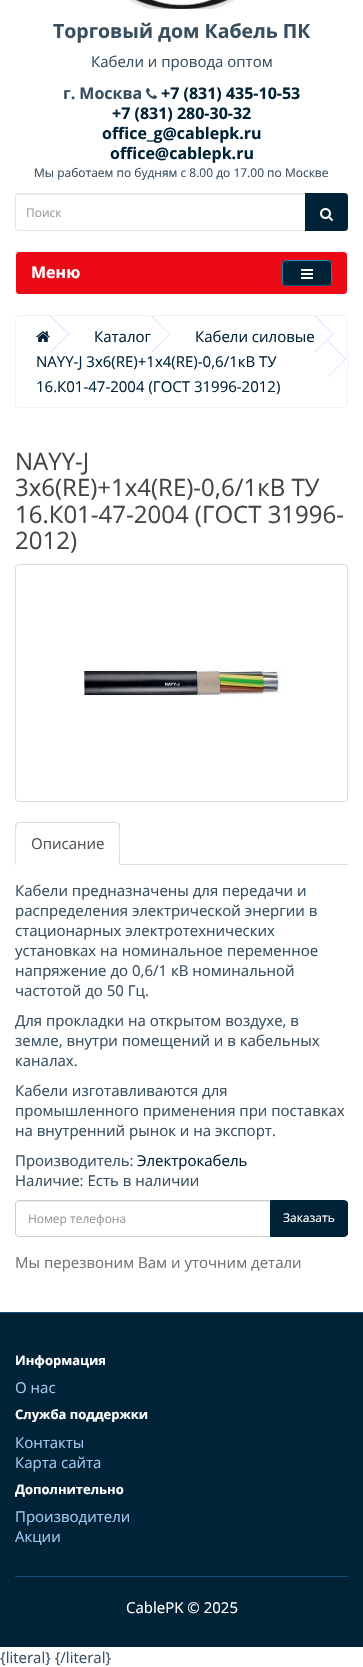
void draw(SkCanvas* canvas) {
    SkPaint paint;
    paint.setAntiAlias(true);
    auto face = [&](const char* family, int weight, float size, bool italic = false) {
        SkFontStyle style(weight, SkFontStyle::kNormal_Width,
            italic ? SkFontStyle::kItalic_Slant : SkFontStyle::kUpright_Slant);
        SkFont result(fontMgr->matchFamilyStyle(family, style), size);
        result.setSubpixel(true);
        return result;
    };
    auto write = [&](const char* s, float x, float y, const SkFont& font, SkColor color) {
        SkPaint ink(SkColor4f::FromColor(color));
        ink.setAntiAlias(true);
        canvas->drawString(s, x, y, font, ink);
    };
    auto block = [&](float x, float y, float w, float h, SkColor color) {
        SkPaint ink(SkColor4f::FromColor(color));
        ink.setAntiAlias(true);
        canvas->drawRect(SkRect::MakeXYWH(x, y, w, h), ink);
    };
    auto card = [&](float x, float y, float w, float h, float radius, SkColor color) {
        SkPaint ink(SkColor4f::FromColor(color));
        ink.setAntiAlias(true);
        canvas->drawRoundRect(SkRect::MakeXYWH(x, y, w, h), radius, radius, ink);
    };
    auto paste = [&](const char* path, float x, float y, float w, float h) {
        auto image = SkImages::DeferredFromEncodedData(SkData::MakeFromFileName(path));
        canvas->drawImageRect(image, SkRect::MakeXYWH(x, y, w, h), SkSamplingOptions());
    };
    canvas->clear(SK_ColorWHITE);
    paste("pic1.png", 128, 0, 107, 9);
    auto kFont1 = face("Open Sans", 700, 19.5f);
    write("Торговый дом Кабель ПК", 53, 38, kFont1, SkColorSetRGB(56, 79, 96));
    auto kFont2 = face("Open Sans", 400, 15);
    write("Кабели и провода оптом", 91, 67, kFont2, SkColorSetRGB(56, 79, 96));
    auto kFont3 = face("Open Sans", 700, 16);
    write("г. Москва", 63, 99, kFont3, SkColorSetRGB(56, 79, 96));
    paste("pic2.png", 146, 88, 11, 11);
    write("+7 (831) 435-10-53", 161, 99, kFont3, SkColorSetRGB(1, 35, 56));
    write("+7 (831) 280-30-32", 112, 119, kFont3, SkColorSetRGB(1, 35, 56));
    write("office_g@cablepk.ru", 102, 139, kFont3, SkColorSetRGB(1, 35, 56));
    write("office@cablepk.ru", 110, 159, kFont3, SkColorSetRGB(1, 35, 56));
    auto kFont4 = face("Open Sans", 400, 12);
    write("Мы работаем по будням с 8.00 до 17.00 по Москве", 34, 177, kFont4, SkColorSetRGB(56, 79, 96));
    paint.setColor(SkColorSetRGB(236, 236, 236));
    canvas->drawPath(SkPathBuilder().moveTo(18, 195).lineTo(305, 195).lineTo(305, 194).lineTo(17, 194).lineTo(16, 197).cubicTo(16, 196, 17, 195, 18, 195).close().detach(), paint);
    paint.setStyle(SkPaint::kStroke_Style);
    paint.setStrokeWidth(1);
    paint.setColor(SkColorSetRGB(223, 232, 237));
    canvas->drawPath(SkPathBuilder().moveTo(18, 193.5f).lineTo(305.5f, 193.5f).lineTo(305.5f, 230.5f).lineTo(18, 230.5f).cubicTo(16.5f, 230.5f, 15.5f, 229.5f, 15.5f, 228).lineTo(15.5f, 196).cubicTo(15.5f, 194.5f, 16.5f, 193.5f, 18, 193.5f).close().detach(), paint);
    write("Поиск", 26, 217, kFont4, SkColorSetRGB(153, 153, 153));
    paint.setStyle(SkPaint::kFill_Style);
    paint.setColor(SkColorSetRGB(1, 35, 56));
    canvas->drawPath(SkPathBuilder().moveTo(305, 193).lineTo(345, 193).cubicTo(346.5f, 193, 348, 194.5f, 348, 196).lineTo(348, 228).cubicTo(348, 229.5f, 346.5f, 231, 345, 231).lineTo(305, 231).close().detach(), paint);
    paste("pic3.png", 320, 208, 13, 13);
    paint.setColor(SkColorSetRGB(236, 10, 23));
    canvas->drawRoundRect(SkRect::MakeXYWH(15.5f, 251.5f, 332, 43), 3.5f, 3.5f, paint);
    paint.setStyle(SkPaint::kStroke_Style);
    paint.setColor(SK_ColorWHITE);
    canvas->drawRoundRect(SkRect::MakeXYWH(15.5f, 251.5f, 332, 43), 3.5f, 3.5f, paint);
    write("Меню", 31, 278, kFont3, SK_ColorWHITE);
    card(282, 260, 50, 26, 4, SkColorSetRGB(1, 35, 56));
    paint.setColor(SkColorSetRGB(20, 94, 122));
    canvas->drawPath(SkPathBuilder().moveTo(330.5f, 284.5f).cubicTo(330, 285, 329, 285.5f, 328, 285.5f).lineTo(286, 285.5f).cubicTo(285, 285.5f, 284, 285, 283.5f, 284.5f).detach(), paint);
    paint.setColor(SkColorSetRGB(31, 144, 187));
    canvas->drawPath(SkPathBuilder().moveTo(283.5f, 284.5f).cubicTo(281.5f, 282.5f, 282.5f, 275.5f, 282.5f, 273).cubicTo(282.5f, 260.5f, 280.5f, 260.5f, 293, 260.5f).lineTo(321, 260.5f).cubicTo(333.5f, 260.5f, 331.5f, 260.5f, 331.5f, 273).cubicTo(331.5f, 275.5f, 332.5f, 282.5f, 330.5f, 284.5f).detach(), paint);
    paste("pic4.png", 301, 269, 12, 10);
    paint.setColor(SkColorSetRGB(242, 242, 242));
    canvas->drawRoundRect(SkRect::MakeXYWH(15.5f, 315.5f, 332, 92), 3.5f, 3.5f, paint);
    paste("pic5.png", 36, 331, 14, 11);
    paint.setStyle(SkPaint::kFill_Style);
    paint.setColor(SkColorSetRGB(224, 231, 255));
    canvas->drawPath(SkPathBuilder().moveTo(50, 316.5f).lineTo(51, 315.5f).lineTo(69.5f, 334).lineTo(68.5f, 334.5f).close().detach(), paint);
    canvas->drawPath(SkPathBuilder().moveTo(50, 351.5f).lineTo(68.5f, 333.5f).lineTo(69.5f, 334).lineTo(51, 352.5f).close().detach(), paint);
    write("Каталог", 94, 342, kFont2, SkColorSetRGB(1, 35, 56));
    canvas->drawPath(SkPathBuilder().moveTo(151, 316.5f).lineTo(152, 315.5f).lineTo(170, 334).lineTo(169.5f, 334.5f).close().detach(), paint);
    canvas->drawPath(SkPathBuilder().moveTo(151, 351.5f).lineTo(169.5f, 333.5f).lineTo(170, 334).lineTo(152, 352.5f).close().detach(), paint);
    write("Кабели силовые", 195, 342, kFont2, SkColorSetRGB(1, 35, 56));
    canvas->drawPath(SkPathBuilder().moveTo(314.5f, 316.5f).lineTo(315.5f, 315.5f).lineTo(334, 334).lineTo(333, 334.5f).close().detach(), paint);
    canvas->drawPath(SkPathBuilder().moveTo(314.5f, 351.5f).lineTo(333, 333.5f).lineTo(334, 334).lineTo(315.5f, 352.5f).close().detach(), paint);
    write("NAYY-J 3х6(RE)+1х4(RE)-0,6/1кВ ТУ", 36, 367, kFont2, SkColorSetRGB(1, 35, 56));
    canvas->drawPath(SkPathBuilder().moveTo(327.5f, 341.5f).lineTo(328, 340.5f).lineTo(346.5f, 359).lineTo(345.5f, 359.5f).close().detach(), paint);
    canvas->drawPath(SkPathBuilder().moveTo(327.5f, 376.5f).lineTo(345.5f, 358.5f).lineTo(346.5f, 359).lineTo(328, 377.5f).close().detach(), paint);
    write("16.К01-47-2004 (ГОСТ 31996-2012)", 36, 392, kFont2, SkColorSetRGB(1, 35, 56));
    auto kFont5 = face("Open Sans", 400, 24);
    write("NAYY-J", 15, 470, kFont5, SkColorSetRGB(68, 68, 68));
    write("3х6(RE)+1х4(RE)-0,6/1кВ ТУ", 15, 496, kFont5, SkColorSetRGB(68, 68, 68));
    write("16.К01-47-2004 (ГОСТ 31996-", 15, 523, kFont5, SkColorSetRGB(68, 68, 68));
    write("2012)", 15, 549, kFont5, SkColorSetRGB(68, 68, 68));
    paint.setStyle(SkPaint::kStroke_Style);
    paint.setColor(SkColorSetRGB(221, 221, 221));
    canvas->drawRoundRect(SkRect::MakeXYWH(15.5f, 564.5f, 332, 237), 3.5f, 3.5f, paint);
    paste("pic6.png", 84, 665, 199, 32);
    block(120, 864, 228, 1, SkColorSetRGB(221, 221, 221));
    paint.setStyle(SkPaint::kFill_Style);
    canvas->drawPath(SkPathBuilder().moveTo(19, 822).lineTo(16, 823).lineTo(17, 824).lineTo(19, 823).lineTo(116, 823).lineTo(118, 824).lineTo(119, 823).lineTo(116, 822).close().detach(), paint);
    canvas->drawPath(SkPathBuilder().moveTo(120, 865).lineTo(120, 826).cubicTo(120, 825, 120, 824, 119, 823).lineTo(118, 824).cubicTo(120, 826, 119, 859, 119, 864).close().detach(), paint);
    canvas->drawPath(SkPathBuilder().moveTo(15, 865).lineTo(16, 864).cubicTo(16, 859, 15, 826, 17, 824).lineTo(16, 823).lineTo(15, 826).close().detach(), paint);
    write("Описание", 31, 849, kFont2, SkColorSetRGB(85, 85, 85));
    write("Кабели предназначены для передачи и", 15, 896, kFont2, SkColorSetRGB(56, 79, 96));
    write("распределения электрической энергии в", 15, 916, kFont2, SkColorSetRGB(56, 79, 96));
    write("стационарных электротехнических", 15, 936, kFont2, SkColorSetRGB(56, 79, 96));
    write("установках на номинальное переменное", 15, 956, kFont2, SkColorSetRGB(56, 79, 96));
    write("напряжение до 0,6/1 кВ номинальной", 15, 976, kFont2, SkColorSetRGB(56, 79, 96));
    write("частотой до 50 Гц.", 15, 996, kFont2, SkColorSetRGB(56, 79, 96));
    write("Для прокладки на открытом воздухе, в", 15, 1026, kFont2, SkColorSetRGB(56, 79, 96));
    write("земле, внутри помещений и в кабельных", 15, 1046, kFont2, SkColorSetRGB(56, 79, 96));
    write("каналах.", 15, 1066, kFont2, SkColorSetRGB(56, 79, 96));
    write("Кабели изготавливаются для", 15, 1096, kFont2, SkColorSetRGB(56, 79, 96));
    write("промышленного применения при поставках", 15, 1116, kFont2, SkColorSetRGB(56, 79, 96));
    write("на внутренний рынок и на экспорт.", 15, 1136, kFont2, SkColorSetRGB(56, 79, 96));
    write("Производитель:", 15, 1166, kFont2, SkColorSetRGB(56, 79, 96));
    write("Электрокабель", 137, 1166, kFont2, SkColorSetRGB(1, 35, 56));
    write("Наличие: Есть в наличии", 15, 1186, kFont2, SkColorSetRGB(56, 79, 96));
    paint.setColor(SkColorSetRGB(236, 236, 236));
    canvas->drawPath(SkPathBuilder().moveTo(19, 1202).lineTo(270, 1202).lineTo(270, 1201).lineTo(19, 1201).cubicTo(17, 1201, 16, 1203, 16, 1205).cubicTo(16, 1203, 17, 1202, 19, 1202).close().detach(), paint);
    paint.setStyle(SkPaint::kStroke_Style);
    paint.setColor(SkColorSetRGB(204, 204, 204));
    canvas->drawPath(SkPathBuilder().moveTo(19, 1200.5f).lineTo(270.5f, 1200.5f).lineTo(270.5f, 1236.5f).lineTo(19, 1236.5f).cubicTo(17, 1236.5f, 15.5f, 1235, 15.5f, 1233).lineTo(15.5f, 1204).cubicTo(15.5f, 1202, 17, 1200.5f, 19, 1200.5f).close().detach(), paint);
    write("Номер телефона", 28, 1223, kFont4, SkColorSetRGB(153, 153, 153));
    canvas->save();
    canvas->clipPath(SkPathBuilder().moveTo(270, 1200).lineTo(344, 1200).cubicTo(346, 1200, 348, 1202, 348, 1204).lineTo(348, 1233).cubicTo(348, 1235, 346, 1237, 344, 1237).lineTo(270, 1237).close().detach(), true);
    block(271, 1201, 77, 35, SkColorSetRGB(1, 35, 56));
    canvas->restore();
    paint.setColor(SkColorSetRGB(1, 35, 56));
    canvas->drawPath(SkPathBuilder().moveTo(270.5f, 1200.5f).lineTo(344, 1200.5f).cubicTo(346, 1200.5f, 347.5f, 1202, 347.5f, 1204).lineTo(347.5f, 1233).cubicTo(347.5f, 1235, 346, 1236.5f, 344, 1236.5f).lineTo(270.5f, 1236.5f).close().detach(), paint);
    write("Заказать", 283, 1222, kFont4, SK_ColorWHITE);
    write("Мы перезвоним Вам и уточним детали", 15, 1268, kFont2, SkColorSetRGB(115, 115, 115));
    block(0, 1313, 363, 334, SkColorSetRGB(1, 35, 56));
    block(0, 1312, 363, 1, SkColorSetRGB(16, 78, 117));
    auto kFont6 = face("Open Sans", 700, 13);
    write("Информация", 15, 1365, kFont6, SK_ColorWHITE);
    write("О нас", 15, 1393, kFont2, SkColorSetRGB(163, 199, 239));
    write("Служба поддержки", 15, 1419, kFont6, SK_ColorWHITE);
    write("Контакты", 15, 1448, kFont2, SkColorSetRGB(163, 199, 239));
    write("Карта сайта", 15, 1468, kFont2, SkColorSetRGB(163, 199, 239));
    write("Дополнительно", 15, 1494, kFont6, SK_ColorWHITE);
    write("Производители", 15, 1522, kFont2, SkColorSetRGB(163, 199, 239));
    write("Акции", 15, 1542, kFont2, SkColorSetRGB(163, 199, 239));
    block(15, 1576, 333, 1, SkColorSetRGB(16, 78, 117));
    write("CablePK © 2025", 126, 1613, kFont2, SK_ColorWHITE);
    write("{literal} {/literal}", 0, 1663, kFont2, SkColorSetRGB(56, 79, 96));
}
